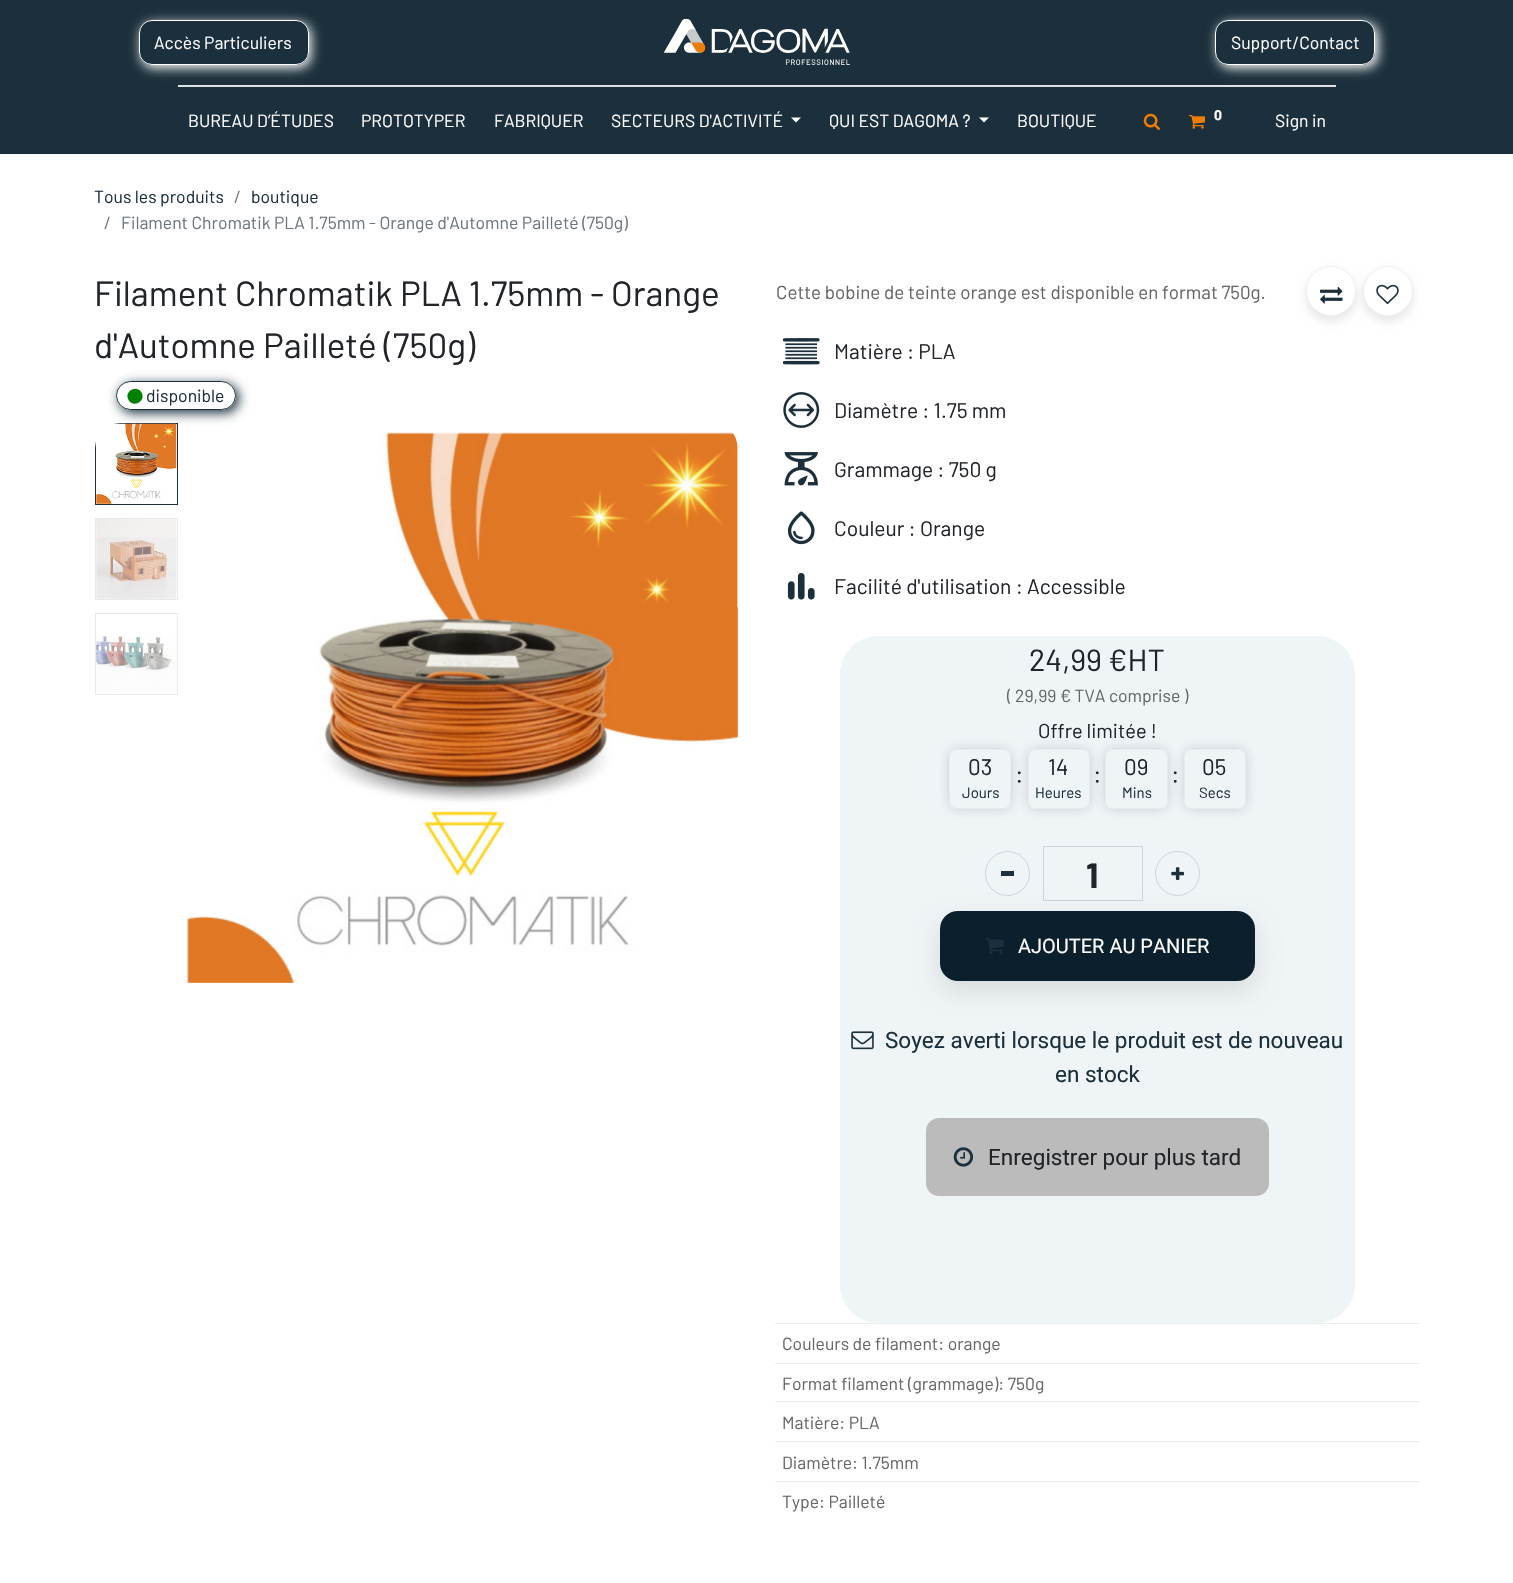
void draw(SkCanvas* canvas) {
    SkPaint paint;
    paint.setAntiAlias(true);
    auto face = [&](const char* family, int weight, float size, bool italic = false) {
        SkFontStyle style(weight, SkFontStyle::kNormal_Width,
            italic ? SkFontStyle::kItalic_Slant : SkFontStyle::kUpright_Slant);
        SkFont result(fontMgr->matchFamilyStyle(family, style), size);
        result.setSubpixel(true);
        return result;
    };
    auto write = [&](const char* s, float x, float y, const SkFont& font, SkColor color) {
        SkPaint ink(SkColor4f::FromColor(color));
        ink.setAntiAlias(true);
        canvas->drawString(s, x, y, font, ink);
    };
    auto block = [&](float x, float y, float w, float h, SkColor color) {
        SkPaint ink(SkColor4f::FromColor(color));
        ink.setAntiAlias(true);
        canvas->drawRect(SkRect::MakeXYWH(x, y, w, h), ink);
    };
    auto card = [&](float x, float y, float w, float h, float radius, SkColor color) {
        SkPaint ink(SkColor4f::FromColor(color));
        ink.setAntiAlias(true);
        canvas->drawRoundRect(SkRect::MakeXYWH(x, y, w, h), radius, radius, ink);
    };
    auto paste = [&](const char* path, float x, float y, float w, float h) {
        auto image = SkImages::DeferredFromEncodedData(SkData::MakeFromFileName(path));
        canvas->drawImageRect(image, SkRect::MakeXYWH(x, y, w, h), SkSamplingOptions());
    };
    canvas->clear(SK_ColorWHITE);
    block(0, 0, 1513, 154, SkColorSetRGB(27, 48, 60));
    canvas->save();
    canvas->clipPath(SkPathBuilder(SkPathFillType::kEvenOdd).moveTo(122, 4).lineTo(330, 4).lineTo(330, 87).lineTo(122, 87).close().moveTo(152, 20).lineTo(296, 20).cubicTo(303, 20, 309, 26, 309, 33).lineTo(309, 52).cubicTo(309, 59, 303, 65, 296, 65).lineTo(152, 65).cubicTo(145, 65, 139, 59, 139, 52).lineTo(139, 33).cubicTo(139, 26, 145, 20, 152, 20).close().detach(), true);
    paint.setColor(SK_ColorWHITE);
    paint.setMaskFilter(SkMaskFilter::MakeBlur(kNormal_SkBlurStyle, 6));
    canvas->drawRoundRect(SkRect::MakeXYWH(141, 23, 170, 45), 13, 13, paint);
    paint.setMaskFilter(nullptr);
    canvas->restore();
    paint.setStyle(SkPaint::kStroke_Style);
    paint.setStrokeWidth(1);
    canvas->drawRoundRect(SkRect::MakeXYWH(139.5f, 20.5f, 169, 44), 12.5f, 12.5f, paint);
    auto kFont1 = face("Barlow", 400, 17.5f);
    write("Accès Particuliers", 154, 49, kFont1, SK_ColorWHITE);
    paste("pic1.png", 664, 19, 186, 46);
    canvas->save();
    canvas->clipPath(SkPathBuilder(SkPathFillType::kEvenOdd).moveTo(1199, 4).lineTo(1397, 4).lineTo(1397, 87).lineTo(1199, 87).close().moveTo(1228, 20).lineTo(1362, 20).cubicTo(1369, 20, 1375, 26, 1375, 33).lineTo(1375, 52).cubicTo(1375, 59, 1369, 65, 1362, 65).lineTo(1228, 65).cubicTo(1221, 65, 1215, 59, 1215, 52).lineTo(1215, 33).cubicTo(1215, 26, 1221, 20, 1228, 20).close().detach(), true);
    paint.setStyle(SkPaint::kFill_Style);
    paint.setMaskFilter(SkMaskFilter::MakeBlur(kNormal_SkBlurStyle, 6));
    canvas->drawRoundRect(SkRect::MakeXYWH(1218, 23, 160, 45), 13, 13, paint);
    paint.setMaskFilter(nullptr);
    canvas->restore();
    paint.setStyle(SkPaint::kStroke_Style);
    canvas->drawRoundRect(SkRect::MakeXYWH(1215.5f, 20.5f, 159, 44), 12.5f, 12.5f, paint);
    write("Support/Contact", 1231, 49, kFont1, SK_ColorWHITE);
    block(178, 85, 1158, 2, SkColorSetRGB(222, 226, 230));
    write("BUREAU D’ÉTUDES", 188, 127, kFont1, SK_ColorWHITE);
    write("PROTOTYPER", 361, 127, kFont1, SK_ColorWHITE);
    write("FABRIQUER", 494, 127, kFont1, SK_ColorWHITE);
    write("SECTEURS D'ACTIVITÉ", 611, 127, kFont1, SK_ColorWHITE);
    paint.setStyle(SkPaint::kFill_Style);
    canvas->drawPath(SkPathBuilder().moveTo(791, 117.5f).lineTo(801, 117.5f).lineTo(796, 122.5f).close().detach(), paint);
    write("QUI EST DAGOMA ?", 829, 127, kFont1, SK_ColorWHITE);
    canvas->drawPath(SkPathBuilder().moveTo(979, 117.5f).lineTo(989, 117.5f).lineTo(984, 122.5f).close().detach(), paint);
    write("BOUTIQUE", 1017, 127, kFont1, SK_ColorWHITE);
    paste("pic2.png", 1143, 113, 17, 17);
    paste("pic3.png", 1188, 115, 17, 14);
    auto kFont2 = face("Barlow", 700, 14);
    write("0", 1214, 120, kFont2, SK_ColorWHITE);
    write("Sign in", 1275, 127, kFont1, SK_ColorWHITE);
    write("Tous les produits", 94, 203, kFont1, SkColorSetRGB(27, 48, 60));
    write("/", 234, 203, kFont1, SkColorSetRGB(108, 117, 125));
    write("boutique", 251, 203, kFont1, SkColorSetRGB(27, 48, 60));
    write("/", 104, 229, kFont1, SkColorSetRGB(108, 117, 125));
    write("Filament Chromatik PLA 1.75mm - Orange d'Automne Pailleté (750g)", 121, 229, kFont1, SkColorSetRGB(108, 117, 125));
    auto kFont3 = face("Barlow", 400, 35);
    write("Filament Chromatik PLA 1.75mm - Orange", 94, 306, kFont3, SkColorSetRGB(33, 37, 41));
    write("d'Automne Pailleté (750g)", 94, 358, kFont3, SkColorSetRGB(33, 37, 41));
    canvas->save();
    canvas->clipPath(SkPathBuilder(SkPathFillType::kEvenOdd).moveTo(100, 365).lineTo(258, 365).lineTo(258, 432).lineTo(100, 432).close().moveTo(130.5f, 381).lineTo(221.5f, 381).cubicTo(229.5f, 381, 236, 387.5f, 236, 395.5f).cubicTo(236, 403.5f, 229.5f, 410, 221.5f, 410).lineTo(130.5f, 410).cubicTo(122.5f, 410, 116, 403.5f, 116, 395.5f).cubicTo(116, 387.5f, 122.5f, 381, 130.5f, 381).close().detach(), true);
    paint.setColor(SkColorSetRGB(27, 48, 60));
    paint.setMaskFilter(SkMaskFilter::MakeBlur(kNormal_SkBlurStyle, 6));
    canvas->drawRoundRect(SkRect::MakeXYWH(119, 384, 120, 29), 14.5f, 14.5f, paint);
    paint.setMaskFilter(nullptr);
    canvas->restore();
    paint.setStyle(SkPaint::kStroke_Style);
    canvas->drawRoundRect(SkRect::MakeXYWH(116.5f, 381.5f, 119, 28), 14, 14, paint);
    paint.setStyle(SkPaint::kFill_Style);
    paint.setColor(SkColorSetRGB(0, 128, 0));
    canvas->drawPath(SkPathBuilder().moveTo(141.5f, 392.5f).cubicTo(146.5f, 401, 133.5f, 408.5f, 128.5f, 400).cubicTo(123.5f, 391.5f, 136.5f, 384, 141.5f, 392.5f).close().detach(), paint);
    write("disponible", 146, 402, kFont1, SkColorSetRGB(27, 48, 60));
    canvas->save();
    canvas->clipPath(SkPathBuilder().moveTo(120, 423).lineTo(713, 423).cubicTo(727, 423, 738, 434, 738, 448).lineTo(738, 983).lineTo(95, 983).lineTo(95, 448).cubicTo(95, 434, 106, 423, 120, 423).close().detach(), true);
    block(96, 424, 80, 80, SK_ColorWHITE);
    canvas->restore();
    paint.setColor(SkColorSetRGB(27, 48, 60));
    canvas->drawPath(SkPathBuilder().moveTo(120, 423).lineTo(113, 424).lineTo(177, 424).lineTo(177, 504).lineTo(96, 504).lineTo(96, 441).lineTo(95, 448).lineTo(95, 505).lineTo(178, 505).lineTo(178, 423).close().detach(), paint);
    paste("pic4.png", 96, 423, 81, 81);
    paint.setStyle(SkPaint::kStroke_Style);
    paint.setColor(SkColorSetRGB(231, 234, 237));
    canvas->drawRect(SkRect::MakeXYWH(95.5f, 518.5f, 82, 81), paint);
    paste("pic5.png", 96, 519, 81, 80);
    canvas->drawRect(SkRect::MakeXYWH(95.5f, 613.5f, 82, 81), paint);
    paste("pic6.png", 96, 636, 80, 57);
    paste("pic7.png", 187, 432, 551, 551);
    auto kFont4 = face("Barlow", 400, 18.75f);
    write("Cette bobine de teinte orange est disponible en format 750g.", 776, 299, kFont4, SkColorSetRGB(100, 102, 105));
    paste("pic8.png", 782, 338, 38, 27);
    auto kFont5 = face("Barlow", 400, 21);
    write("Matière : PLA", 834, 359, kFont5, SkColorSetRGB(33, 37, 41));
    paste("pic9.png", 783, 392, 37, 36);
    write("Diamètre : 1.75 mm", 834, 418, kFont5, SkColorSetRGB(33, 37, 41));
    paste("pic10.png", 784, 452, 34, 34);
    write("Grammage : 750 g", 834, 477, kFont5, SkColorSetRGB(33, 37, 41));
    paste("pic11.png", 787, 511, 28, 34);
    write("Couleur : Orange", 834, 536, kFont5, SkColorSetRGB(33, 37, 41));
    paste("pic12.png", 787, 572, 28, 28);
    write("Facilité d'utilisation : Accessible", 834, 594, kFont5, SkColorSetRGB(33, 37, 41));
    card(840, 636, 515, 687, 38, SkColorSetRGB(239, 244, 246));
    paint.setStyle(SkPaint::kFill_Style);
    paint.setColor(SkColorSetARGB(26, 0, 0, 0));
    paint.setMaskFilter(SkMaskFilter::MakeBlur(kNormal_SkBlurStyle, 5));
    canvas->drawRoundRect(SkRect::MakeXYWH(1306, 271, 50, 50), 25, 25, paint);
    paint.setMaskFilter(nullptr);
    paint.setColor(SK_ColorWHITE);
    canvas->drawCircle(1331, 291, 24.5f, paint);
    paint.setStyle(SkPaint::kStroke_Style);
    paint.setColor(SkColorSetRGB(240, 240, 240));
    canvas->drawCircle(1331, 291, 24.5f, paint);
    paste("pic13.png", 1320, 286, 23, 18);
    paint.setStyle(SkPaint::kFill_Style);
    paint.setColor(SkColorSetARGB(26, 0, 0, 0));
    paint.setMaskFilter(SkMaskFilter::MakeBlur(kNormal_SkBlurStyle, 5));
    canvas->drawRoundRect(SkRect::MakeXYWH(1363, 271, 50, 50), 25, 25, paint);
    paint.setMaskFilter(nullptr);
    paint.setColor(SK_ColorWHITE);
    canvas->drawCircle(1388, 291, 24.5f, paint);
    paint.setStyle(SkPaint::kStroke_Style);
    paint.setColor(SkColorSetRGB(240, 240, 240));
    canvas->drawCircle(1388, 291, 24.5f, paint);
    paste("pic14.png", 1376, 284, 23, 21);
    auto kFont6 = face("Barlow", 400, 30.5f);
    write("24,99 €HT", 1029, 671, kFont6, SkColorSetRGB(33, 37, 41));
    write("( 29,99 € TVA comprise )", 1007, 702, kFont1, SkColorSetRGB(100, 102, 105));
    auto kFont7 = face("Barlow", 400, 20);
    write("Offre limitée !", 1038, 738, kFont7, SkColorSetRGB(33, 37, 41));
    canvas->save();
    canvas->clipPath(SkPathBuilder(SkPathFillType::kEvenOdd).moveTo(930, 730).lineTo(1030, 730).lineTo(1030, 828).lineTo(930, 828).close().moveTo(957, 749).lineTo(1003, 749).cubicTo(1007.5f, 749, 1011, 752.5f, 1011, 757).lineTo(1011, 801).cubicTo(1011, 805.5f, 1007.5f, 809, 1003, 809).lineTo(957, 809).cubicTo(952.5f, 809, 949, 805.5f, 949, 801).lineTo(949, 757).cubicTo(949, 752.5f, 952.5f, 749, 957, 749).close().detach(), true);
    paint.setStyle(SkPaint::kFill_Style);
    paint.setColor(SkColorSetARGB(51, 50, 50, 93));
    paint.setMaskFilter(SkMaskFilter::MakeBlur(kNormal_SkBlurStyle, 6));
    canvas->drawRoundRect(SkRect::MakeXYWH(949, 749, 62, 60), 8, 8, paint);
    paint.setMaskFilter(nullptr);
    canvas->restore();
    paint.setStyle(SkPaint::kStroke_Style);
    paint.setColor(SkColorSetRGB(234, 234, 234));
    canvas->drawRoundRect(SkRect::MakeXYWH(949.5f, 749.5f, 61, 59), 7.5f, 7.5f, paint);
    auto kFont8 = face("Barlow", 400, 22.5f);
    write("03", 968, 775, kFont8, SkColorSetRGB(33, 37, 41));
    auto kFont9 = face("Barlow", 400, 15);
    write("Jours", 962, 798, kFont9, SkColorSetRGB(27, 48, 60));
    auto kFont10 = face("Barlow", 400, 25);
    write(":", 1015, 783, kFont10, SkColorSetRGB(33, 37, 41));
    canvas->save();
    canvas->clipPath(SkPathBuilder(SkPathFillType::kEvenOdd).moveTo(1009, 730).lineTo(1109, 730).lineTo(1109, 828).lineTo(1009, 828).close().moveTo(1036, 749).lineTo(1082, 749).cubicTo(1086.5f, 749, 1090, 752.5f, 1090, 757).lineTo(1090, 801).cubicTo(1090, 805.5f, 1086.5f, 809, 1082, 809).lineTo(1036, 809).cubicTo(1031.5f, 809, 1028, 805.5f, 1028, 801).lineTo(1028, 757).cubicTo(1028, 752.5f, 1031.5f, 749, 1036, 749).close().detach(), true);
    paint.setStyle(SkPaint::kFill_Style);
    paint.setColor(SkColorSetARGB(51, 50, 50, 93));
    paint.setMaskFilter(SkMaskFilter::MakeBlur(kNormal_SkBlurStyle, 6));
    canvas->drawRoundRect(SkRect::MakeXYWH(1028, 749, 62, 60), 8, 8, paint);
    paint.setMaskFilter(nullptr);
    canvas->restore();
    paint.setStyle(SkPaint::kStroke_Style);
    paint.setColor(SkColorSetRGB(234, 234, 234));
    canvas->drawRoundRect(SkRect::MakeXYWH(1028.5f, 749.5f, 61, 59), 7.5f, 7.5f, paint);
    write("14", 1048, 775, kFont8, SkColorSetRGB(33, 37, 41));
    write("Heures", 1035, 798, kFont9, SkColorSetRGB(27, 48, 60));
    write(":", 1093, 783, kFont10, SkColorSetRGB(33, 37, 41));
    canvas->save();
    canvas->clipPath(SkPathBuilder(SkPathFillType::kEvenOdd).moveTo(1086, 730).lineTo(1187, 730).lineTo(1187, 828).lineTo(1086, 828).close().moveTo(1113, 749).lineTo(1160, 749).cubicTo(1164.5f, 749, 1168, 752.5f, 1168, 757).lineTo(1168, 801).cubicTo(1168, 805.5f, 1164.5f, 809, 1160, 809).lineTo(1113, 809).cubicTo(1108.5f, 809, 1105, 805.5f, 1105, 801).lineTo(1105, 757).cubicTo(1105, 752.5f, 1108.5f, 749, 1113, 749).close().detach(), true);
    paint.setStyle(SkPaint::kFill_Style);
    paint.setColor(SkColorSetARGB(51, 50, 50, 93));
    paint.setMaskFilter(SkMaskFilter::MakeBlur(kNormal_SkBlurStyle, 6));
    canvas->drawRoundRect(SkRect::MakeXYWH(1105, 749, 63, 60), 8, 8, paint);
    paint.setMaskFilter(nullptr);
    canvas->restore();
    paint.setStyle(SkPaint::kStroke_Style);
    paint.setColor(SkColorSetRGB(234, 234, 234));
    canvas->drawRoundRect(SkRect::MakeXYWH(1105.5f, 749.5f, 62, 59), 7.5f, 7.5f, paint);
    write("09", 1124, 775, kFont8, SkColorSetRGB(33, 37, 41));
    write("Mins", 1122, 798, kFont9, SkColorSetRGB(27, 48, 60));
    write(":", 1171, 783, kFont10, SkColorSetRGB(33, 37, 41));
    canvas->save();
    canvas->clipPath(SkPathBuilder(SkPathFillType::kEvenOdd).moveTo(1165, 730).lineTo(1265, 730).lineTo(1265, 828).lineTo(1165, 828).close().moveTo(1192, 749).lineTo(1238, 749).cubicTo(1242.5f, 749, 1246, 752.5f, 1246, 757).lineTo(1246, 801).cubicTo(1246, 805.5f, 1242.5f, 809, 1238, 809).lineTo(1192, 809).cubicTo(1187.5f, 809, 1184, 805.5f, 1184, 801).lineTo(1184, 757).cubicTo(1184, 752.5f, 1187.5f, 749, 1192, 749).close().detach(), true);
    paint.setStyle(SkPaint::kFill_Style);
    paint.setColor(SkColorSetARGB(51, 50, 50, 93));
    paint.setMaskFilter(SkMaskFilter::MakeBlur(kNormal_SkBlurStyle, 6));
    canvas->drawRoundRect(SkRect::MakeXYWH(1184, 749, 62, 60), 8, 8, paint);
    paint.setMaskFilter(nullptr);
    canvas->restore();
    paint.setStyle(SkPaint::kStroke_Style);
    paint.setColor(SkColorSetRGB(234, 234, 234));
    canvas->drawRoundRect(SkRect::MakeXYWH(1184.5f, 749.5f, 61, 59), 7.5f, 7.5f, paint);
    write("05", 1202, 775, kFont8, SkColorSetRGB(33, 37, 41));
    write("Secs", 1199, 798, kFont9, SkColorSetRGB(27, 48, 60));
    paint.setColor(SkColorSetRGB(206, 212, 218));
    canvas->drawRect(SkRect::MakeXYWH(1043.5f, 846.5f, 99, 54), paint);
    paint.setStyle(SkPaint::kFill_Style);
    paint.setColor(SkColorSetARGB(26, 0, 0, 0));
    paint.setMaskFilter(SkMaskFilter::MakeBlur(kNormal_SkBlurStyle, 12.5f));
    canvas->drawRoundRect(SkRect::MakeXYWH(940, 921, 315, 70), 18, 18, paint);
    paint.setMaskFilter(nullptr);
    paint.setStyle(SkPaint::kStroke_Style);
    paint.setColor(SkColorSetRGB(206, 212, 218));
    canvas->drawCircle(1007.5f, 873.5f, 22, paint);
    block(1001, 871, 13, 5, SkColorSetRGB(27, 48, 60));
    auto kFont11 = face("Barlow", 700, 35);
    write("1", 1086, 888, kFont11, SkColorSetRGB(33, 37, 41));
    canvas->drawCircle(1177.5f, 873.5f, 22, paint);
    paste("pic15.png", 1171, 867, 13, 13);
    card(940, 911, 315, 70, 18, SkColorSetRGB(12, 31, 44));
    paste("pic16.png", 985, 938, 19, 16);
    auto kFont12 = face("Roboto", 400, 20);
    write("AJOUTER AU PANIER", 1018, 953, kFont12, SK_ColorWHITE);
    paste("pic17.png", 851, 1031, 23, 19);
    auto kFont13 = face("Roboto", 400, 22.5f);
    write("Soyez averti lorsque le produit est de nouveau", 885, 1048, kFont13, SkColorSetRGB(27, 48, 60));
    write("en stock", 1055, 1082, kFont13, SkColorSetRGB(27, 48, 60));
    card(926, 1118, 343, 78, 13, SkColorSetRGB(187, 187, 187));
    paste("pic18.png", 953, 1147, 20, 20);
    write("Enregistrer pour plus tard", 988, 1165, kFont13, SkColorSetRGB(33, 37, 41));
    block(775, 1323, 645, 1, SkColorSetRGB(237, 237, 237));
    write("Couleurs de filament: orange", 782, 1350, kFont1, SkColorSetRGB(100, 102, 105));
    block(775, 1363, 645, 1, SkColorSetRGB(237, 237, 237));
    write("Format filament (grammage): 750g", 782, 1390, kFont1, SkColorSetRGB(100, 102, 105));
    block(775, 1401, 645, 1, SkColorSetRGB(237, 237, 237));
    write("Matière: PLA", 782, 1429, kFont1, SkColorSetRGB(100, 102, 105));
    block(775, 1441, 645, 1, SkColorSetRGB(237, 237, 237));
    write("Diamètre: 1.75mm", 782, 1469, kFont1, SkColorSetRGB(100, 102, 105));
    block(775, 1481, 645, 1, SkColorSetRGB(237, 237, 237));
    write("Type: Pailleté", 782, 1508, kFont1, SkColorSetRGB(100, 102, 105));
}
